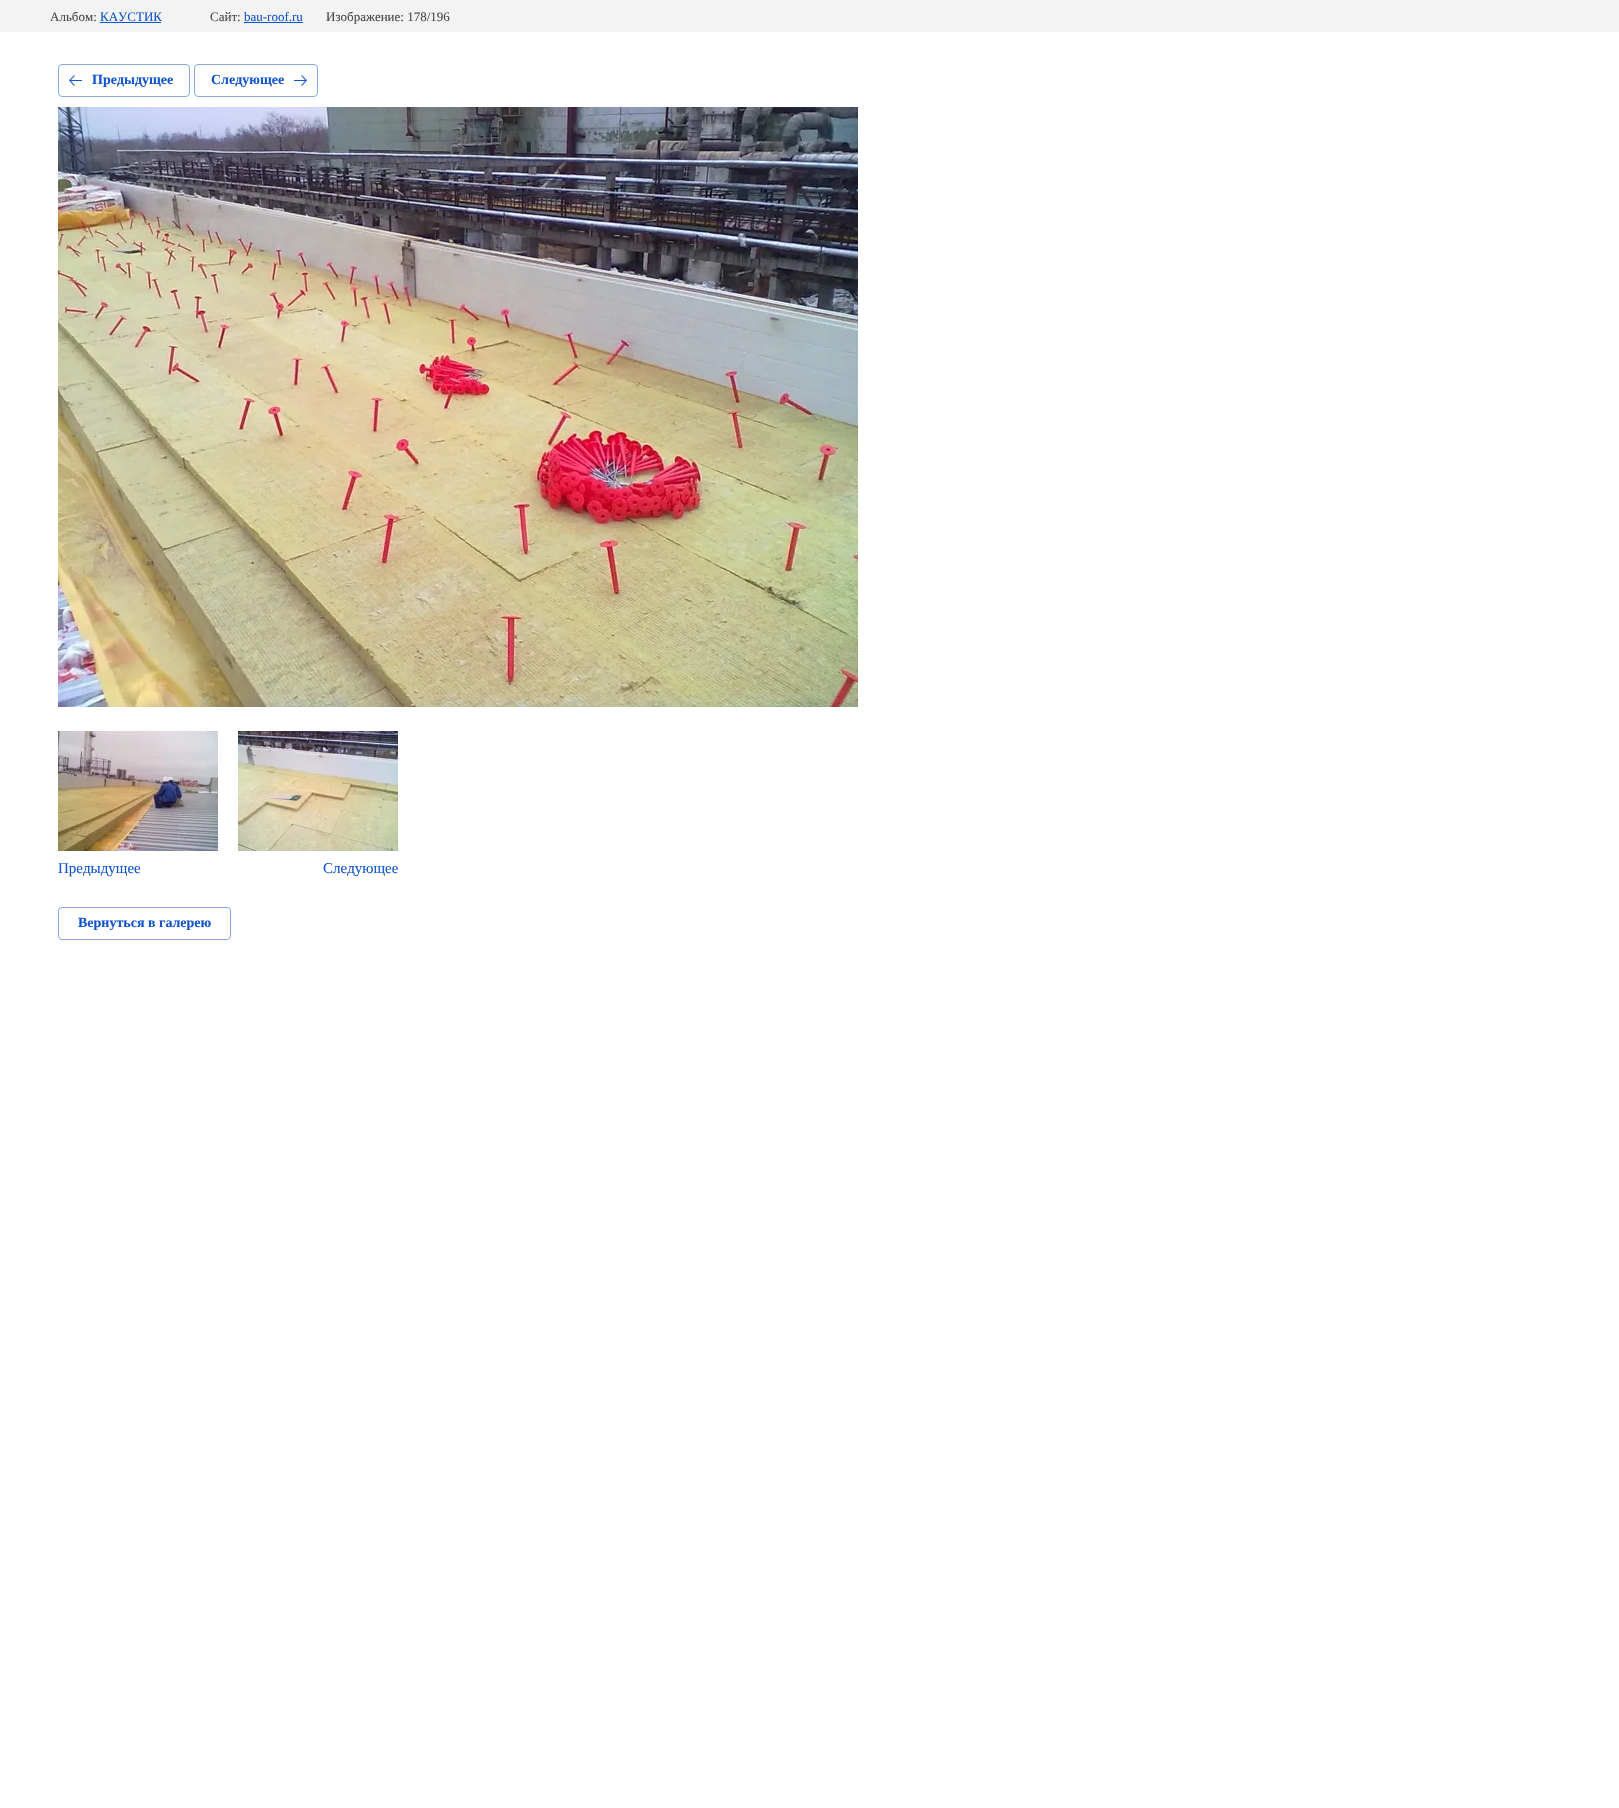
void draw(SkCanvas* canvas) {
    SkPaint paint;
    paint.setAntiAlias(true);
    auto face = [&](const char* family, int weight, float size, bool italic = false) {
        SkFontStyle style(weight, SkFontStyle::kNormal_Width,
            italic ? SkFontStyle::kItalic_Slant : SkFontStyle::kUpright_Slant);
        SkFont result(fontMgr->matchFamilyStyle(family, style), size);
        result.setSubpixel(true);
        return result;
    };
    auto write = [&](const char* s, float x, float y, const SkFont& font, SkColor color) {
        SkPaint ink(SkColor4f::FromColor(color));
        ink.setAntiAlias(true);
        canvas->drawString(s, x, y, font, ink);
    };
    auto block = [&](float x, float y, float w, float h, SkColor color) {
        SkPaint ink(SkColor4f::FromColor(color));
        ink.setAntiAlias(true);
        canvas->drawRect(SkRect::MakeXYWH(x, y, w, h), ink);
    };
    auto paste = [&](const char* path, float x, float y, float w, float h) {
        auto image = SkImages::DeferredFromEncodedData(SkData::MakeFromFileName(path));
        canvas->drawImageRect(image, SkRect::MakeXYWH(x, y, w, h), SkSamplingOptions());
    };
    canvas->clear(SK_ColorWHITE);
    block(0, 0, 1619, 32, SkColorSetRGB(243, 243, 243));
    auto kFont1 = face("Liberation Serif", 400, 13);
    write("Альбом:", 50, 21, kFont1, SkColorSetRGB(72, 72, 72));
    write("КАУСТИК", 100, 21, kFont1, SkColorSetRGB(17, 85, 204));
    block(100, 22, 61, 1, SkColorSetRGB(17, 85, 204));
    write("Сайт:", 210, 21, kFont1, SkColorSetRGB(72, 72, 72));
    write("bau-roof.ru", 244, 21, kFont1, SkColorSetRGB(17, 85, 204));
    block(244, 22, 59, 1, SkColorSetRGB(17, 85, 204));
    write("Изображение: 178/196", 326, 21, kFont1, SkColorSetRGB(72, 72, 72));
    paint.setStyle(SkPaint::kStroke_Style);
    paint.setStrokeWidth(1);
    paint.setColor(SkColorSetRGB(136, 170, 230));
    canvas->drawRoundRect(SkRect::MakeXYWH(58.5f, 64.5f, 131, 32), 3.5f, 3.5f, paint);
    paste("pic1.png", 69, 75, 13, 11);
    auto kFont2 = face("Liberation Serif", 700, 14);
    write("Предыдущее", 92, 84, kFont2, SkColorSetRGB(17, 85, 204));
    canvas->drawRoundRect(SkRect::MakeXYWH(194.5f, 64.5f, 123, 32), 3.5f, 3.5f, paint);
    write("Следующее", 211, 84, kFont2, SkColorSetRGB(17, 85, 204));
    paste("pic2.png", 294, 75, 13, 11);
    paste("pic3.png", 58, 107, 800, 600);
    paste("pic4.png", 58, 731, 160, 120);
    auto kFont3 = face("Liberation Serif", 400, 15);
    write("Предыдущее", 58, 873, kFont3, SkColorSetRGB(17, 85, 204));
    paste("pic5.png", 238, 731, 160, 120);
    write("Следующее", 323, 873, kFont3, SkColorSetRGB(17, 85, 204));
    canvas->drawRoundRect(SkRect::MakeXYWH(58.5f, 907.5f, 172, 32), 3.5f, 3.5f, paint);
    write("Вернуться в галерею", 78, 927, kFont2, SkColorSetRGB(17, 85, 204));
}
